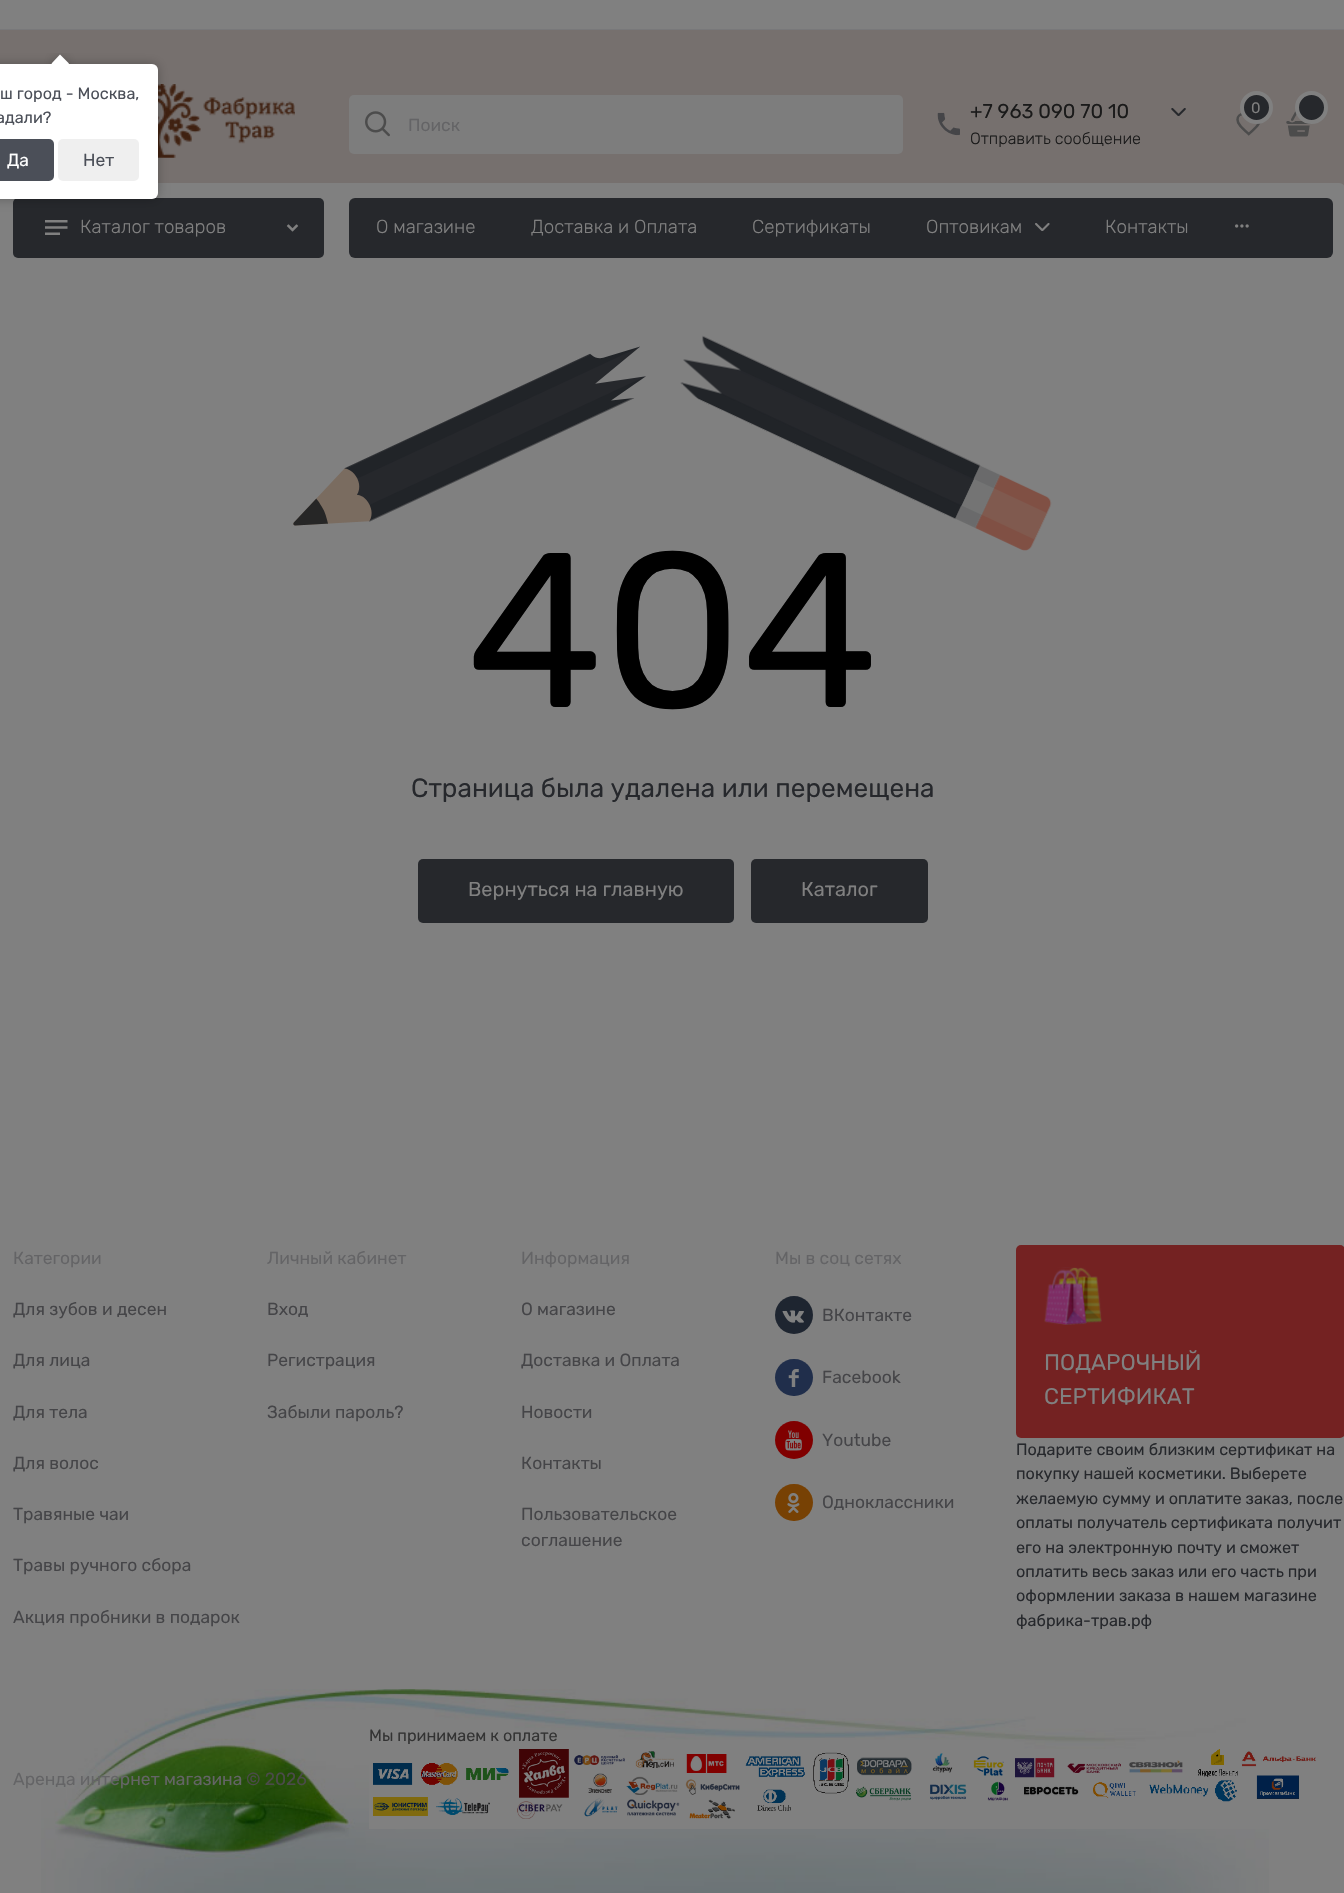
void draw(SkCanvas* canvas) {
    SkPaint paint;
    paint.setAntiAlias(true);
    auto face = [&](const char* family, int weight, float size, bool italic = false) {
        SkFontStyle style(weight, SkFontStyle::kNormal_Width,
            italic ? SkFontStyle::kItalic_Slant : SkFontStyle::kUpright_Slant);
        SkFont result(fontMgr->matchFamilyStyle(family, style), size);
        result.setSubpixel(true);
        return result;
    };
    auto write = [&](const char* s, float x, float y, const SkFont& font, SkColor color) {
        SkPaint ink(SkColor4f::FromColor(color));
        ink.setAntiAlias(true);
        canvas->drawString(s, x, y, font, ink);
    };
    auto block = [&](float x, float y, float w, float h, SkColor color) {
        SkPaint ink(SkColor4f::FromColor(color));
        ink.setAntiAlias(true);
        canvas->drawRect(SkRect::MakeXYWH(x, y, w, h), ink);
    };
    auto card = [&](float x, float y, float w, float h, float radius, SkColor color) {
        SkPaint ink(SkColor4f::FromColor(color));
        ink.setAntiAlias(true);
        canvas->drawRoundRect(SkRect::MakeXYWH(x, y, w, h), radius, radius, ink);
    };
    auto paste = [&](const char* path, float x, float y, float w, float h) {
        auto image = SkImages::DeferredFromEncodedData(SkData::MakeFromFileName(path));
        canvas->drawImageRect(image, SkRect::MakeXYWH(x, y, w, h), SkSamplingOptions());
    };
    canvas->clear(SkColorSetRGB(128, 128, 128));
    paste("pic1.png", 0, 30, 1344, 156);
    paste("pic2.png", 158, 84, 137, 74);
    paint.setColor(SkColorSetRGB(128, 128, 128));
    canvas->drawPath(SkPathBuilder().moveTo(6, 183).lineTo(1339, 183).cubicTo(1342.5f, 183, 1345, 185.5f, 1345, 189).lineTo(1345, 273).lineTo(0, 273).lineTo(0, 189).cubicTo(0, 185.5f, 2.5f, 183, 6, 183).close().detach(), paint);
    card(13, 198, 311, 60, 5, SkColorSetRGB(38, 40, 44));
    paint.setColor(SkColorSetARGB(64, 0, 0, 0));
    paint.setMaskFilter(SkMaskFilter::MakeBlur(kNormal_SkBlurStyle, 5.5f));
    canvas->drawRoundRect(SkRect::MakeXYWH(-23, 64, 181, 135), 6, 6, paint);
    paint.setMaskFilter(nullptr);
    card(-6, 64, 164, 135, 6, SK_ColorWHITE);
    canvas->save();
    canvas->clipRect(SkRect::MakeXYWH(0, 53, 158, 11));
    paint.setMaskFilter(SkMaskFilter::MakeBlur(kNormal_SkBlurStyle, 5.5f));
    canvas->drawRect(SkRect::MakeXYWH(54, 58, 12, 12), paint);
    paint.setMaskFilter(nullptr);
    canvas->restore();
    canvas->save();
    canvas->clipRect(SkRect::MakeXYWH(0, 53, 158, 11));
    paint.setColor(SK_ColorWHITE);
    canvas->drawPath(SkPathBuilder().moveTo(60, 54.5f).lineTo(69, 63.5f).lineTo(60, 72.5f).lineTo(51.5f, 63.5f).close().detach(), paint);
    canvas->restore();
    auto kFont1 = face("Rubik", 400, 16.25f);
    write("ш город - Москва,", 0, 99, kFont1, SkColorSetRGB(75, 79, 88));
    write("адали?", -4, 123, kFont1, SkColorSetRGB(75, 79, 88));
    card(-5, 139, 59, 42, 5, SkColorSetRGB(75, 79, 88));
    auto kFont2 = face("Rubik", 400, 17.5f);
    write("Да", 7, 166, kFont2, SK_ColorWHITE);
    card(58, 139, 81, 42, 5, SkColorSetRGB(239, 239, 239));
    write("Нет", 83, 166, kFont2, SkColorSetRGB(75, 79, 88));
    block(0, 29, 1344, 1, SkColorSetRGB(120, 120, 122));
    card(349, 95, 554, 59, 5, SkColorSetRGB(125, 125, 125));
    paste("pic3.png", 365, 111, 25, 26);
    write("Поиск", 408, 131, kFont2, SkColorSetRGB(100, 100, 102));
    paste("pic4.png", 937, 112, 23, 24);
    auto kFont3 = face("Rubik", 400, 20);
    write("+7 963 090 70 10", 970, 118, kFont3, SkColorSetRGB(26, 26, 26));
    auto kFont4 = face("Rubik", 300, 16.25f);
    write("Отправить сообщение", 970, 144, kFont4, SkColorSetRGB(26, 26, 26));
    paste("pic5.png", 1171, 108, 15, 8);
    paste("pic6.png", 1236, 113, 25, 23);
    paint.setColor(SkColorSetRGB(38, 40, 44));
    canvas->drawCircle(1256.5f, 107.5f, 14.5f, paint);
    paint.setStyle(SkPaint::kStroke_Style);
    paint.setStrokeWidth(4);
    paint.setColor(SkColorSetRGB(128, 128, 128));
    canvas->drawCircle(1256.5f, 107.5f, 14.5f, paint);
    auto kFont5 = face("Rubik", 400, 15);
    write("0", 1251, 113, kFont5, SkColorSetRGB(128, 128, 128));
    paste("pic7.png", 1286, 111, 25, 26);
    paint.setStyle(SkPaint::kFill_Style);
    paint.setColor(SkColorSetRGB(38, 40, 44));
    canvas->drawCircle(1311.5f, 107.5f, 14.5f, paint);
    paint.setStyle(SkPaint::kStroke_Style);
    paint.setColor(SkColorSetRGB(128, 128, 128));
    canvas->drawCircle(1311.5f, 107.5f, 14.5f, paint);
    paste("pic8.png", 45, 220, 23, 15);
    auto kFont6 = face("Rubik", 300, 18.75f);
    write("Каталог товаров", 80, 233, kFont6, SkColorSetRGB(128, 128, 128));
    paste("pic9.png", 286, 224, 13, 8);
    card(349, 198, 984, 60, 6, SkColorSetRGB(38, 40, 44));
    write("О магазине", 376, 233, kFont6, SkColorSetRGB(128, 128, 128));
    write("Доставка и Оплата", 531, 233, kFont6, SkColorSetRGB(128, 128, 128));
    write("Cертификаты", 752, 233, kFont6, SkColorSetRGB(128, 128, 128));
    write("Оптовикам", 926, 233, kFont6, SkColorSetRGB(128, 128, 128));
    paste("pic10.png", 1035, 223, 15, 8);
    write("Контакты", 1105, 233, kFont6, SkColorSetRGB(128, 128, 128));
    paste("pic11.png", 1235, 224, 14, 4);
    paste("pic12.png", 293, 335, 759, 216);
    auto kFont7 = face("Rubik", 400, 220);
    write("404", 467, 707, kFont7, SK_ColorBLACK);
    auto kFont8 = face("Rubik", 400, 26.25f);
    write("Страница была удалена или перемещена", 411, 797, kFont8, SkColorSetRGB(38, 40, 44));
    card(418, 859, 316, 64, 5, SkColorSetRGB(38, 40, 44));
    write("Вернуться на главную", 468, 896, kFont3, SkColorSetRGB(128, 128, 128));
    card(751, 859, 177, 64, 5, SkColorSetRGB(38, 40, 44));
    write("Каталог", 801, 896, kFont3, SkColorSetRGB(128, 128, 128));
    write("Категории", 13, 1264, kFont2, SkColorSetRGB(100, 100, 102));
    write("Для зубов и десен", 13, 1315, kFont2, SkColorSetRGB(69, 69, 72));
    write("Для лица", 13, 1366, kFont2, SkColorSetRGB(69, 69, 72));
    write("Для тела", 13, 1418, kFont2, SkColorSetRGB(69, 69, 72));
    write("Для волос", 13, 1469, kFont2, SkColorSetRGB(69, 69, 72));
    write("Травяные чаи", 13, 1520, kFont2, SkColorSetRGB(69, 69, 72));
    write("Травы ручного сбора", 13, 1571, kFont2, SkColorSetRGB(69, 69, 72));
    write("Акция пробники в подарок", 13, 1623, kFont2, SkColorSetRGB(69, 69, 72));
    write("Личный кабинет", 267, 1264, kFont2, SkColorSetRGB(100, 100, 102));
    write("Вход", 267, 1315, kFont2, SkColorSetRGB(69, 69, 72));
    write("Регистрация", 267, 1366, kFont2, SkColorSetRGB(69, 69, 72));
    write("Забыли пароль?", 267, 1418, kFont2, SkColorSetRGB(69, 69, 72));
    write("Информация", 521, 1264, kFont2, SkColorSetRGB(100, 100, 102));
    write("О магазине", 521, 1315, kFont2, SkColorSetRGB(69, 69, 72));
    write("Доставка и Оплата", 521, 1366, kFont2, SkColorSetRGB(69, 69, 72));
    write("Новости", 521, 1418, kFont2, SkColorSetRGB(69, 69, 72));
    write("Контакты", 521, 1469, kFont2, SkColorSetRGB(69, 69, 72));
    write("Пользовательское", 521, 1520, kFont2, SkColorSetRGB(69, 69, 72));
    write("соглашение", 521, 1546, kFont2, SkColorSetRGB(69, 69, 72));
    write("Мы в соц сетях", 775, 1264, kFont2, SkColorSetRGB(100, 100, 102));
    paint.setStyle(SkPaint::kFill_Style);
    paint.setColor(SkColorSetRGB(30, 37, 48));
    canvas->drawCircle(794, 1315, 19, paint);
    paste("pic13.png", 782, 1310, 22, 13);
    write("ВКонтакте", 822, 1321, kFont2, SkColorSetRGB(69, 69, 72));
    card(775, 1359, 38, 37, 18.5f, SkColorSetRGB(32, 46, 75));
    paste("pic14.png", 788, 1369, 11, 18);
    write("Facebook", 822, 1383, kFont2, SkColorSetRGB(69, 69, 72));
    paint.setColor(SkColorSetRGB(128, 0, 0));
    canvas->drawCircle(794, 1440, 19, paint);
    paste("pic15.png", 785, 1430, 17, 21);
    write("Youtube", 822, 1446, kFont2, SkColorSetRGB(69, 69, 72));
    card(775, 1484, 38, 37, 18.5f, SkColorSetRGB(119, 65, 4));
    paste("pic16.png", 787, 1493, 13, 20);
    write("Одноклассники", 822, 1508, kFont2, SkColorSetRGB(69, 69, 72));
    card(1016, 1245, 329, 193, 5, SkColorSetRGB(116, 34, 34));
    paste("pic17.png", 1044, 1267, 58, 58);
    auto kFont9 = face("Rubik", 400, 22.5f);
    write("ПОДАРОЧНЫЙ", 1044, 1370, kFont9, SkColorSetRGB(128, 128, 128));
    write("СЕРТИФИКАТ", 1044, 1404, kFont9, SkColorSetRGB(128, 128, 128));
    write("Подарите своим близким сертификат на", 1016, 1455, kFont1, SkColorSetRGB(38, 40, 44));
    write("покупку нашей косметики. Выберете", 1016, 1479, kFont1, SkColorSetRGB(38, 40, 44));
    write("желаемую сумму и оплатите заказ, после", 1016, 1504, kFont1, SkColorSetRGB(38, 40, 44));
    write("оплаты получатель сертификата получит", 1016, 1528, kFont1, SkColorSetRGB(38, 40, 44));
    write("его на электронную почту и сможет", 1016, 1553, kFont1, SkColorSetRGB(38, 40, 44));
    write("оплатить весь заказ или его часть при", 1016, 1577, kFont1, SkColorSetRGB(38, 40, 44));
    write("оформлении заказа в нашем магазине", 1016, 1601, kFont1, SkColorSetRGB(38, 40, 44));
    write("фабрика-трав.рф", 1016, 1626, kFont1, SkColorSetRGB(38, 40, 44));
    paste("pic19.png", 41, 1689, 1228, 204);
    write("Мы принимаем к оплате", 369, 1741, kFont1, SkColorSetRGB(51, 51, 51));
    paste("pic18.png", 369, 1749, 947, 80);
    write("Аренда интернет магазина", 13, 1785, kFont2, SkColorSetRGB(100, 100, 102));
    write("© 2026", 246, 1785, kFont2, SkColorSetRGB(75, 74, 74));
}
